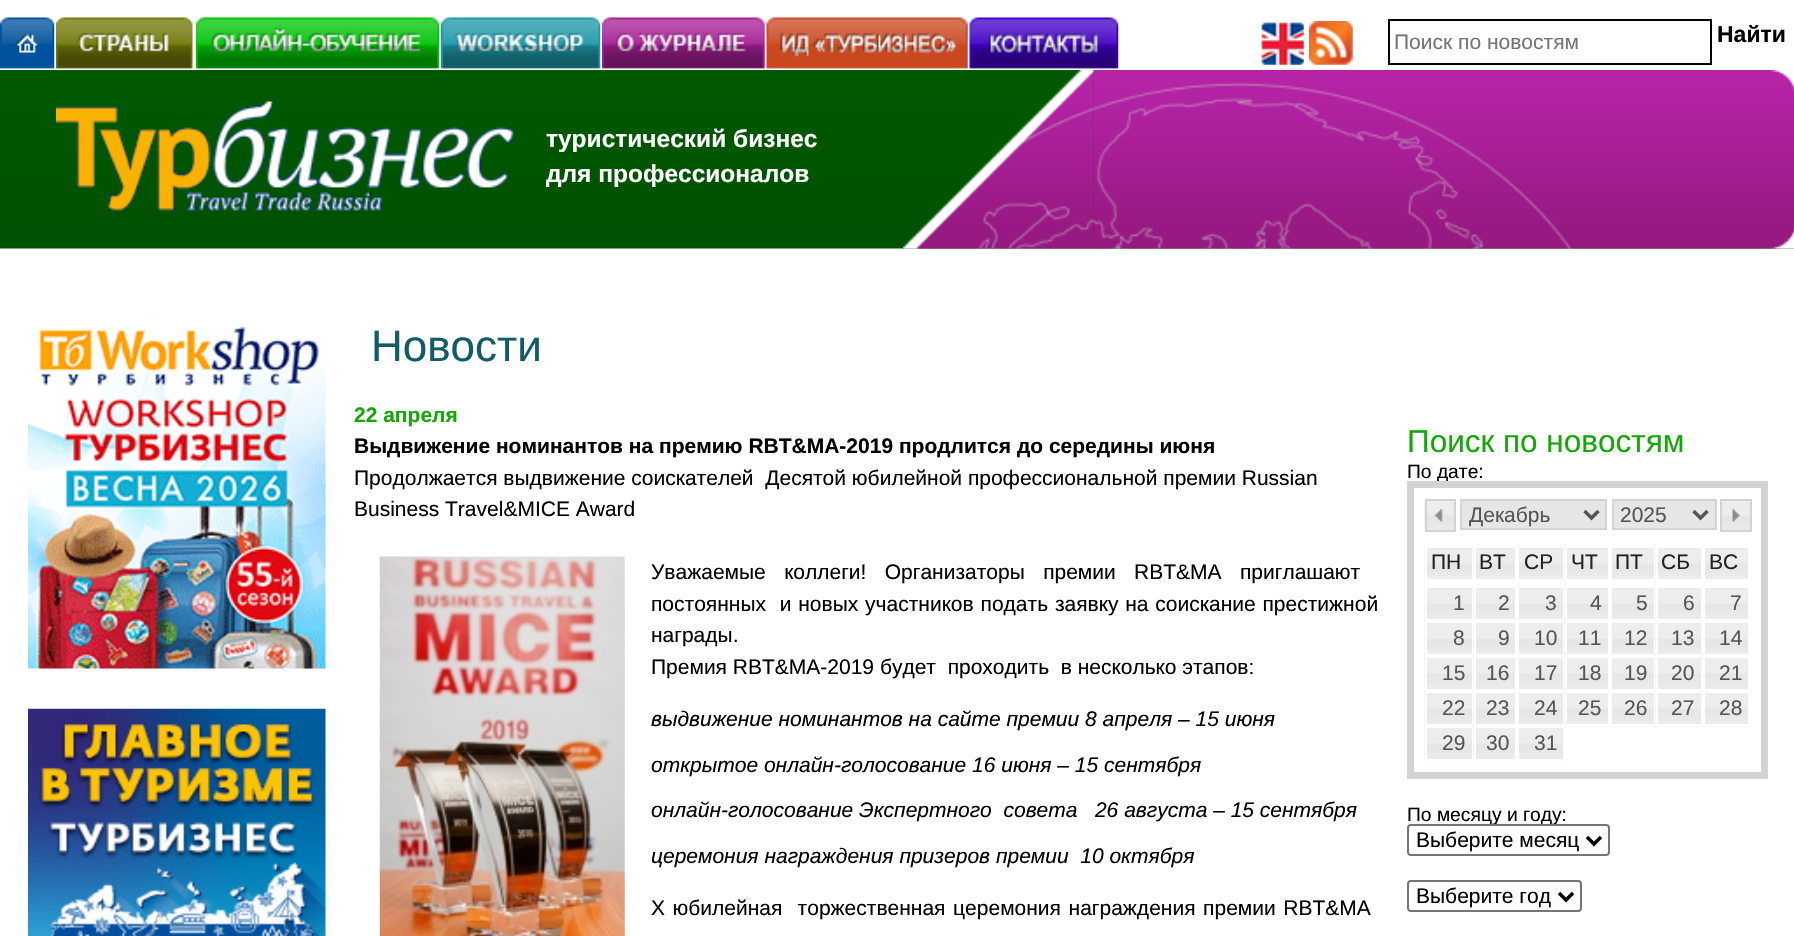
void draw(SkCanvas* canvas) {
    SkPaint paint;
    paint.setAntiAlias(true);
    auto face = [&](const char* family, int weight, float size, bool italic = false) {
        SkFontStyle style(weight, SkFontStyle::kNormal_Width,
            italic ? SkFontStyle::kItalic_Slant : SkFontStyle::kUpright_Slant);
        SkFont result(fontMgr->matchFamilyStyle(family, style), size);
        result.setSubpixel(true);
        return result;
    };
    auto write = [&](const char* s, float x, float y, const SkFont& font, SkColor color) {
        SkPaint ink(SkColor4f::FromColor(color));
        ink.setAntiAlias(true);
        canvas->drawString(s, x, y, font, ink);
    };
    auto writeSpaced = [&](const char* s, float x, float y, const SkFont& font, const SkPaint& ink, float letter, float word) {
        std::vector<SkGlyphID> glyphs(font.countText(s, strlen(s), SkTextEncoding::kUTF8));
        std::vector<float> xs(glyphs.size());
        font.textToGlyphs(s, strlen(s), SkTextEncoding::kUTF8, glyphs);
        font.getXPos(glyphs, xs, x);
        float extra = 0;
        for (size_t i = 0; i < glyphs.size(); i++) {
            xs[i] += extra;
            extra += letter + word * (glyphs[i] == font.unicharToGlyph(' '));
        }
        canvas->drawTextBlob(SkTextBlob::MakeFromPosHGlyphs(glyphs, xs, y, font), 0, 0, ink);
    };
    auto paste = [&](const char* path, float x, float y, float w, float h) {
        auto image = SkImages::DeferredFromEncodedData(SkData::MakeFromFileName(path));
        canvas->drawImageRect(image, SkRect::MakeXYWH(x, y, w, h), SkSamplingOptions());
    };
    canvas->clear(SK_ColorWHITE);
    paste("pic1.png", 0, 17, 55, 52);
    paste("pic2.png", 56, 17, 137, 52);
    paste("pic3.png", 196, 17, 244, 52);
    paste("pic4.png", 441, 17, 160, 52);
    paste("pic5.png", 602, 17, 163, 52);
    paste("pic6.png", 766, 17, 202, 52);
    paste("pic7.png", 969, 17, 150, 52);
    paste("pic8.png", 1261, 22, 43, 43);
    paste("pic9.png", 1309, 21, 44, 44);
    paint.setStyle(SkPaint::kStroke_Style);
    paint.setStrokeWidth(2);
    paint.setColor(SK_ColorBLACK);
    canvas->drawRect(SkRect::MakeXYWH(1389, 20, 322, 44), paint);
    auto kFont1 = face("Liberation Sans", 400, 21);
    write("Поиск по новостям", 1394, 49, kFont1, SkColorSetRGB(117, 117, 117));
    auto kFont2 = face("Liberation Sans", 700, 23);
    write("Найти", 1717, 42, kFont2, SK_ColorBLACK);
    paste("pic10.png", 0, 70, 1794, 179);
    paste("pic11.png", 903, 70, 191, 179);
    paste("pic12.png", 56, 101, 458, 110);
    auto kFont3 = face("Liberation Sans", 700, 24.5f);
    write("туристический бизнес", 546, 147, kFont3, SK_ColorWHITE);
    write("для профессионалов", 546, 182, kFont3, SK_ColorWHITE);
    paste("pic13.png", 1093, 70, 701, 179);
    paste("pic14.png", 28, 318, 298, 351);
    paste("pic15.png", 28, 708, 298, 228);
    auto kFont4 = face("Liberation Sans", 400, 44);
    write("Новости", 371, 361, kFont4, SkColorSetRGB(17, 93, 103));
    auto kFont5 = face("Liberation Sans", 700, 21);
    write("22 апреля", 354, 422, kFont5, SkColorSetRGB(18, 169, 5));
    write("Выдвижение номинантов на премию RBT&MA-2019 продлится до середины июня", 354, 453, kFont5, SK_ColorBLACK);
    write("Продолжается выдвижение соискателей  Десятой юбилейной профессиональной премии Russian", 354, 485, kFont1, SK_ColorBLACK);
    write("Business Travel&MICE Award", 354, 516, kFont1, SK_ColorBLACK);
    paste("pic16.png", 379, 556, 246, 380);
    paint.setStyle(SkPaint::kFill_Style);
    writeSpaced("Уважаемые коллеги! Организаторы премии RBT&MA приглашают", 651, 579, kFont1, paint, 0, 12.5f);
    writeSpaced("постоянных  и новых участников подать заявку на соискание престижной", 651, 611, kFont1, paint, 0, 1);
    write("награды.", 651, 642, kFont1, SK_ColorBLACK);
    write("Премия RBT&MA-2019 будет  проходить  в несколько этапов:", 651, 674, kFont1, SK_ColorBLACK);
    auto kFont6 = face("Liberation Sans", 400, 21, true);
    write("выдвижение номинантов на сайте премии 8 апреля – 15 июня", 651, 726, kFont6, SK_ColorBLACK);
    write("открытое онлайн-голосование 16 июня – 15 сентября", 651, 772, kFont6, SK_ColorBLACK);
    write("онлайн-голосование Экспертного  совета   26 августа – 15 сентября", 651, 817, kFont6, SK_ColorBLACK);
    write("церемония награждения призеров премии  10 октября", 651, 863, kFont6, SK_ColorBLACK);
    writeSpaced("Х юбилейная  торжественная церемония награждения премии RBT&MA", 651, 915, kFont1, paint, 0, 1.75f);
    auto kFont7 = face("Liberation Sans", 400, 31.5f);
    write("Поиск по новостям", 1407, 452, kFont7, SkColorSetRGB(18, 169, 5));
    auto kFont8 = face("Liberation Sans", 400, 19.25f);
    write("По дате:", 1407, 478, kFont8, SK_ColorBLACK);
    paint.setStyle(SkPaint::kStroke_Style);
    paint.setStrokeWidth(7);
    paint.setColor(SkColorSetRGB(211, 211, 211));
    canvas->drawRect(SkRect::MakeXYWH(1410.5f, 484.5f, 354, 291), paint);
    paste("pic17.png", 1424, 498, 32, 34);
    paste("pic18.png", 1434, 509, 9, 13);
    paint.setStrokeWidth(2);
    canvas->drawRect(SkRect::MakeXYWH(1426, 500, 29, 31), paint);
    paste("pic19.png", 1720, 498, 32, 32);
    paste("pic20.png", 1732, 509, 8, 13);
    canvas->drawRect(SkRect::MakeXYWH(1721, 500, 30, 31), paint);
    paint.setStyle(SkPaint::kFill_Style);
    paint.setColor(SkColorSetRGB(230, 230, 230));
    canvas->drawRect(SkRect::MakeXYWH(1461, 500, 145, 29), paint);
    paint.setStyle(SkPaint::kStroke_Style);
    paint.setColor(SkColorSetRGB(211, 211, 211));
    canvas->drawRect(SkRect::MakeXYWH(1461, 500, 145, 29), paint);
    paint.setStrokeWidth(3.5f);
    paint.setColor(SkColorSetRGB(85, 85, 85));
    canvas->drawPath(SkPathBuilder().moveTo(1584.5f, 511).lineTo(1591.5f, 518).lineTo(1598.5f, 511).detach(), paint);
    write("Декабрь", 1469, 522, kFont1, SkColorSetRGB(85, 85, 85));
    paint.setStyle(SkPaint::kFill_Style);
    paint.setColor(SkColorSetRGB(230, 230, 230));
    canvas->drawRect(SkRect::MakeXYWH(1613, 500, 103, 29), paint);
    paint.setStyle(SkPaint::kStroke_Style);
    paint.setStrokeWidth(2);
    paint.setColor(SkColorSetRGB(211, 211, 211));
    canvas->drawRect(SkRect::MakeXYWH(1613, 500, 103, 29), paint);
    paint.setStrokeWidth(3.5f);
    paint.setColor(SkColorSetRGB(85, 85, 85));
    canvas->drawPath(SkPathBuilder().moveTo(1693.5f, 511).lineTo(1700.5f, 518).lineTo(1707.5f, 511).detach(), paint);
    write("2025", 1620, 522, kFont1, SkColorSetRGB(85, 85, 85));
    paste("pic21.png", 1424, 546, 48, 35);
    paint.setStrokeWidth(2);
    paint.setColor(SK_ColorWHITE);
    canvas->drawRect(SkRect::MakeXYWH(1426, 547, 47, 33), paint);
    write("ПН", 1431, 569, kFont1, SkColorSetRGB(34, 34, 34));
    paste("pic22.png", 1473, 546, 42, 35);
    canvas->drawRect(SkRect::MakeXYWH(1475, 547, 41, 33), paint);
    write("ВТ", 1479, 569, kFont1, SkColorSetRGB(34, 34, 34));
    paste("pic23.png", 1519, 548, 44, 31);
    write("СР", 1524, 569, kFont1, SkColorSetRGB(34, 34, 34));
    paste("pic24.png", 1564, 546, 44, 35);
    canvas->drawRect(SkRect::MakeXYWH(1566, 547, 43, 33), paint);
    write("ЧТ", 1571, 569, kFont1, SkColorSetRGB(34, 34, 34));
    paste("pic25.png", 1612, 548, 42, 31);
    write("ПТ", 1615, 569, kFont1, SkColorSetRGB(34, 34, 34));
    paste("pic26.png", 1655, 546, 46, 35);
    canvas->drawRect(SkRect::MakeXYWH(1657, 547, 45, 33), paint);
    write("СБ", 1661, 569, kFont1, SkColorSetRGB(34, 34, 34));
    paste("pic27.png", 1702, 546, 46, 35);
    canvas->drawRect(SkRect::MakeXYWH(1704, 547, 45, 33), paint);
    write("ВС", 1709, 569, kFont1, SkColorSetRGB(34, 34, 34));
    paste("pic28.png", 1424, 586, 48, 36);
    canvas->drawRect(SkRect::MakeXYWH(1426, 587, 47, 33), paint);
    write("1", 1453, 610, kFont1, SkColorSetRGB(85, 85, 85));
    paste("pic29.png", 1473, 586, 42, 35);
    canvas->drawRect(SkRect::MakeXYWH(1475, 587, 41, 33), paint);
    write("2", 1498, 610, kFont1, SkColorSetRGB(85, 85, 85));
    paste("pic30.png", 1519, 588, 44, 31);
    write("3", 1545, 610, kFont1, SkColorSetRGB(85, 85, 85));
    paste("pic31.png", 1564, 586, 44, 35);
    canvas->drawRect(SkRect::MakeXYWH(1566, 587, 43, 33), paint);
    write("4", 1590, 610, kFont1, SkColorSetRGB(85, 85, 85));
    paste("pic32.png", 1612, 588, 42, 31);
    write("5", 1636, 610, kFont1, SkColorSetRGB(85, 85, 85));
    paste("pic33.png", 1655, 586, 46, 35);
    canvas->drawRect(SkRect::MakeXYWH(1657, 587, 45, 33), paint);
    write("6", 1683, 610, kFont1, SkColorSetRGB(85, 85, 85));
    paste("pic34.png", 1702, 586, 46, 35);
    canvas->drawRect(SkRect::MakeXYWH(1704, 587, 45, 33), paint);
    write("7", 1730, 610, kFont1, SkColorSetRGB(85, 85, 85));
    paste("pic35.png", 1424, 621, 48, 36);
    canvas->drawRect(SkRect::MakeXYWH(1426, 622, 47, 33), paint);
    write("8", 1453, 645, kFont1, SkColorSetRGB(85, 85, 85));
    paste("pic29.png", 1473, 621, 42, 35);
    canvas->drawRect(SkRect::MakeXYWH(1475, 622, 41, 33), paint);
    write("9", 1498, 645, kFont1, SkColorSetRGB(85, 85, 85));
    paste("pic30.png", 1519, 623, 44, 31);
    write("10", 1534, 645, kFont1, SkColorSetRGB(85, 85, 85));
    paste("pic31.png", 1564, 621, 44, 35);
    canvas->drawRect(SkRect::MakeXYWH(1566, 622, 43, 33), paint);
    write("11", 1578, 645, kFont1, SkColorSetRGB(85, 85, 85));
    paste("pic32.png", 1612, 623, 42, 31);
    write("12", 1624, 645, kFont1, SkColorSetRGB(85, 85, 85));
    paste("pic33.png", 1655, 621, 46, 35);
    canvas->drawRect(SkRect::MakeXYWH(1657, 622, 45, 33), paint);
    write("13", 1671, 645, kFont1, SkColorSetRGB(85, 85, 85));
    paste("pic34.png", 1702, 621, 46, 35);
    canvas->drawRect(SkRect::MakeXYWH(1704, 622, 45, 33), paint);
    write("14", 1719, 645, kFont1, SkColorSetRGB(85, 85, 85));
    paste("pic35.png", 1424, 656, 48, 36);
    canvas->drawRect(SkRect::MakeXYWH(1426, 657, 47, 33), paint);
    write("15", 1442, 680, kFont1, SkColorSetRGB(85, 85, 85));
    paste("pic29.png", 1473, 656, 42, 35);
    canvas->drawRect(SkRect::MakeXYWH(1475, 657, 41, 33), paint);
    write("16", 1486, 680, kFont1, SkColorSetRGB(85, 85, 85));
    paste("pic30.png", 1519, 658, 44, 31);
    write("17", 1534, 680, kFont1, SkColorSetRGB(85, 85, 85));
    paste("pic31.png", 1564, 656, 44, 35);
    canvas->drawRect(SkRect::MakeXYWH(1566, 657, 43, 33), paint);
    write("18", 1578, 680, kFont1, SkColorSetRGB(85, 85, 85));
    paste("pic32.png", 1612, 658, 42, 31);
    write("19", 1624, 680, kFont1, SkColorSetRGB(85, 85, 85));
    paste("pic33.png", 1655, 656, 46, 35);
    canvas->drawRect(SkRect::MakeXYWH(1657, 657, 45, 33), paint);
    write("20", 1671, 680, kFont1, SkColorSetRGB(85, 85, 85));
    paste("pic34.png", 1702, 656, 46, 35);
    canvas->drawRect(SkRect::MakeXYWH(1704, 657, 45, 33), paint);
    write("21", 1719, 680, kFont1, SkColorSetRGB(85, 85, 85));
    paste("pic35.png", 1424, 691, 48, 36);
    canvas->drawRect(SkRect::MakeXYWH(1426, 692, 47, 33), paint);
    write("22", 1442, 715, kFont1, SkColorSetRGB(85, 85, 85));
    paste("pic29.png", 1473, 691, 42, 35);
    canvas->drawRect(SkRect::MakeXYWH(1475, 692, 41, 33), paint);
    write("23", 1486, 715, kFont1, SkColorSetRGB(85, 85, 85));
    paste("pic30.png", 1519, 693, 44, 31);
    write("24", 1534, 715, kFont1, SkColorSetRGB(85, 85, 85));
    paste("pic36.png", 1564, 691, 46, 36);
    canvas->drawRect(SkRect::MakeXYWH(1566, 692, 43, 33), paint);
    write("25", 1578, 715, kFont1, SkColorSetRGB(85, 85, 85));
    paste("pic37.png", 1610, 693, 45, 34);
    canvas->drawRect(SkRect::MakeXYWH(1611, 692, 44, 33), paint);
    write("26", 1624, 715, kFont1, SkColorSetRGB(85, 85, 85));
    paste("pic38.png", 1655, 691, 48, 36);
    canvas->drawRect(SkRect::MakeXYWH(1657, 692, 45, 33), paint);
    write("27", 1671, 715, kFont1, SkColorSetRGB(85, 85, 85));
    paste("pic39.png", 1702, 691, 48, 36);
    canvas->drawRect(SkRect::MakeXYWH(1704, 692, 45, 33), paint);
    write("28", 1719, 715, kFont1, SkColorSetRGB(85, 85, 85));
    paste("pic40.png", 1424, 726, 49, 36);
    canvas->drawRect(SkRect::MakeXYWH(1426, 727, 47, 33), paint);
    write("29", 1442, 750, kFont1, SkColorSetRGB(85, 85, 85));
    paste("pic41.png", 1473, 726, 45, 36);
    canvas->drawRect(SkRect::MakeXYWH(1475, 727, 41, 33), paint);
    write("30", 1486, 750, kFont1, SkColorSetRGB(85, 85, 85));
    paste("pic42.png", 1517, 728, 47, 34);
    canvas->drawRect(SkRect::MakeXYWH(1518, 727, 46, 33), paint);
    write("31", 1534, 750, kFont1, SkColorSetRGB(85, 85, 85));
    write("По месяцу и году:", 1407, 821, kFont8, SK_ColorBLACK);
    paint.setStyle(SkPaint::kFill_Style);
    canvas->drawRoundRect(SkRect::MakeXYWH(1408, 825, 201, 30), 3, 3, paint);
    paint.setStyle(SkPaint::kStroke_Style);
    paint.setColor(SkColorSetRGB(118, 118, 118));
    canvas->drawRoundRect(SkRect::MakeXYWH(1408, 825, 201, 30), 3, 3, paint);
    paint.setStrokeWidth(3.5f);
    paint.setColor(SK_ColorBLACK);
    canvas->drawPath(SkPathBuilder().moveTo(1587, 837).lineTo(1594, 844).lineTo(1601, 837).detach(), paint);
    write("Выберите месяц", 1416, 847, kFont1, SK_ColorBLACK);
    paint.setStrokeWidth(2);
    paint.setColor(SkColorSetRGB(118, 118, 118));
    canvas->drawRoundRect(SkRect::MakeXYWH(1408, 881, 173, 30), 3, 3, paint);
    paint.setStrokeWidth(3.5f);
    paint.setColor(SK_ColorBLACK);
    canvas->drawPath(SkPathBuilder().moveTo(1559, 893).lineTo(1566, 900).lineTo(1573, 893).detach(), paint);
    write("Выберите год", 1416, 903, kFont1, SK_ColorBLACK);
}
